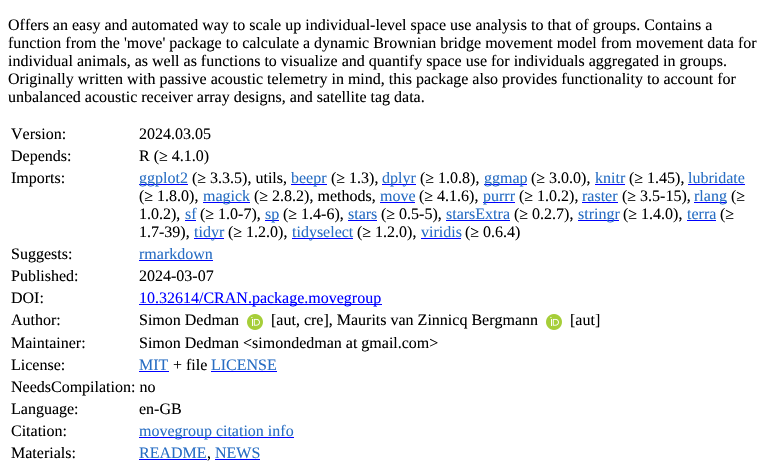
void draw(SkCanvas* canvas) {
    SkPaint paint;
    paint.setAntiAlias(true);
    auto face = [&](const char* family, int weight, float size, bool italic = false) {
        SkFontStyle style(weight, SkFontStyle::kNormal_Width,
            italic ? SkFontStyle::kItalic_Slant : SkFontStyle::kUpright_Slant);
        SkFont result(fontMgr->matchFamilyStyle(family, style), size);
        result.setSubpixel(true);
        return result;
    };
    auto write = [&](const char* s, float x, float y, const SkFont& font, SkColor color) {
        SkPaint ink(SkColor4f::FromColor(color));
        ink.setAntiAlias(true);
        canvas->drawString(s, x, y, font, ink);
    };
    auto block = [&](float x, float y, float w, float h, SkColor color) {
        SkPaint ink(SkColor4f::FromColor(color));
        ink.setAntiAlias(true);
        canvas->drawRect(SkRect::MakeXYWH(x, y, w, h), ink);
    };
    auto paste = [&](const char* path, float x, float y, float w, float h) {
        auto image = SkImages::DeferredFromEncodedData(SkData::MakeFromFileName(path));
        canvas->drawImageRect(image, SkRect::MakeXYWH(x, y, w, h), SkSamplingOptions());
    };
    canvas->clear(SK_ColorWHITE);
    auto kFont1 = face("Liberation Serif", 400, 16);
    write("Offers an easy and automated way to scale up individual-level space use analysis to that of groups. Contains a", 8, 30, kFont1, SK_ColorBLACK);
    write("function from the 'move' package to calculate a dynamic Brownian bridge movement model from movement data for", 8, 48, kFont1, SK_ColorBLACK);
    write("individual animals, as well as functions to visualize and quantify space use for individuals aggregated in groups.", 8, 66, kFont1, SK_ColorBLACK);
    write("Originally written with passive acoustic telemetry in mind, this package also provides functionality to account for", 8, 84, kFont1, SK_ColorBLACK);
    write("unbalanced acoustic receiver array designs, and satellite tag data.", 8, 102, kFont1, SK_ColorBLACK);
    write("Version:", 11, 139, kFont1, SK_ColorBLACK);
    write("2024.03.05", 139, 139, kFont1, SK_ColorBLACK);
    write("Depends:", 11, 161, kFont1, SK_ColorBLACK);
    write("R (≥ 4.1.0)", 139, 161, kFont1, SK_ColorBLACK);
    write("Imports:", 11, 183, kFont1, SK_ColorBLACK);
    block(139, 184, 49, 1, SkColorSetRGB(0, 0, 255));
    write("ggplot2", 139, 183, kFont1, SkColorSetRGB(39, 109, 195));
    write("(≥ 3.3.5), utils,", 192, 183, kFont1, SK_ColorBLACK);
    block(291, 184, 36, 1, SkColorSetRGB(0, 0, 255));
    write("beepr", 291, 183, kFont1, SkColorSetRGB(39, 109, 195));
    write("(≥ 1.3),", 331, 183, kFont1, SK_ColorBLACK);
    block(382, 184, 34, 1, SkColorSetRGB(0, 0, 255));
    write("dplyr", 382, 183, kFont1, SkColorSetRGB(39, 109, 195));
    write("(≥ 1.0.8),", 420, 183, kFont1, SK_ColorBLACK);
    block(484, 184, 43, 1, SkColorSetRGB(0, 0, 255));
    write("ggmap", 484, 183, kFont1, SkColorSetRGB(39, 109, 195));
    write("(≥ 3.0.0),", 531, 183, kFont1, SK_ColorBLACK);
    write("knitr", 595, 183, kFont1, SkColorSetRGB(39, 109, 195));
    block(595, 184, 30, 1, SkColorSetRGB(0, 0, 255));
    write("(≥ 1.45),", 629, 183, kFont1, SK_ColorBLACK);
    write("lubridate", 688, 183, kFont1, SkColorSetRGB(39, 109, 195));
    block(688, 184, 57, 1, SkColorSetRGB(0, 0, 255));
    write("(≥ 1.8.0),", 139, 201, kFont1, SK_ColorBLACK);
    block(203, 202, 47, 1, SkColorSetRGB(0, 0, 255));
    write("magick", 203, 201, kFont1, SkColorSetRGB(39, 109, 195));
    write("(≥ 2.8.2), methods,", 254, 201, kFont1, SK_ColorBLACK);
    write("move", 380, 201, kFont1, SkColorSetRGB(39, 109, 195));
    block(380, 202, 35, 1, SkColorSetRGB(0, 0, 255));
    write("(≥ 4.1.6),", 419, 201, kFont1, SK_ColorBLACK);
    block(483, 202, 32, 1, SkColorSetRGB(0, 0, 255));
    write("purrr", 483, 201, kFont1, SkColorSetRGB(39, 109, 195));
    write("(≥ 1.0.2),", 519, 201, kFont1, SK_ColorBLACK);
    write("raster", 582, 201, kFont1, SkColorSetRGB(39, 109, 195));
    block(582, 202, 36, 1, SkColorSetRGB(0, 0, 255));
    write("(≥ 3.5-15),", 622, 201, kFont1, SK_ColorBLACK);
    block(694, 202, 33, 1, SkColorSetRGB(0, 0, 255));
    write("rlang", 694, 201, kFont1, SkColorSetRGB(39, 109, 195));
    write("(≥", 731, 201, kFont1, SK_ColorBLACK);
    write("1.0.2),", 139, 219, kFont1, SK_ColorBLACK);
    write("sf", 185, 219, kFont1, SkColorSetRGB(39, 109, 195));
    block(185, 220, 11, 1, SkColorSetRGB(0, 0, 255));
    write("(≥ 1.0-7),", 200, 219, kFont1, SK_ColorBLACK);
    block(265, 220, 14, 1, SkColorSetRGB(0, 0, 255));
    write("sp", 265, 219, kFont1, SkColorSetRGB(39, 109, 195));
    write("(≥ 1.4-6),", 283, 219, kFont1, SK_ColorBLACK);
    write("stars", 348, 219, kFont1, SkColorSetRGB(39, 109, 195));
    block(348, 220, 29, 1, SkColorSetRGB(0, 0, 255));
    write("(≥ 0.5-5),", 381, 219, kFont1, SK_ColorBLACK);
    write("starsExtra", 446, 219, kFont1, SkColorSetRGB(39, 109, 195));
    block(446, 220, 64, 1, SkColorSetRGB(0, 0, 255));
    write("(≥ 0.2.7),", 514, 219, kFont1, SK_ColorBLACK);
    block(578, 220, 41, 1, SkColorSetRGB(0, 0, 255));
    write("stringr", 578, 219, kFont1, SkColorSetRGB(39, 109, 195));
    write("(≥ 1.4.0),", 623, 219, kFont1, SK_ColorBLACK);
    write("terra", 687, 219, kFont1, SkColorSetRGB(39, 109, 195));
    block(687, 220, 29, 1, SkColorSetRGB(0, 0, 255));
    write("(≥", 720, 219, kFont1, SK_ColorBLACK);
    write("1.7-39),", 139, 237, kFont1, SK_ColorBLACK);
    block(194, 238, 30, 1, SkColorSetRGB(0, 0, 255));
    write("tidyr", 194, 237, kFont1, SkColorSetRGB(39, 109, 195));
    write("(≥ 1.2.0),", 228, 237, kFont1, SK_ColorBLACK);
    block(292, 238, 61, 1, SkColorSetRGB(0, 0, 255));
    write("tidyselect", 292, 237, kFont1, SkColorSetRGB(39, 109, 195));
    write("(≥ 1.2.0),", 357, 237, kFont1, SK_ColorBLACK);
    write("viridis", 421, 237, kFont1, SkColorSetRGB(39, 109, 195));
    block(421, 238, 40, 1, SkColorSetRGB(0, 0, 255));
    write("(≥ 0.6.4)", 465, 237, kFont1, SK_ColorBLACK);
    write("Suggests:", 11, 259, kFont1, SK_ColorBLACK);
    write("rmarkdown", 139, 259, kFont1, SkColorSetRGB(39, 109, 195));
    block(139, 260, 74, 1, SkColorSetRGB(0, 0, 255));
    write("Published:", 11, 281, kFont1, SK_ColorBLACK);
    write("2024-03-07", 139, 281, kFont1, SK_ColorBLACK);
    write("DOI:", 11, 303, kFont1, SK_ColorBLACK);
    block(139, 304, 243, 1, SkColorSetRGB(0, 0, 255));
    write("10.32614/CRAN.package.movegroup", 139, 303, kFont1, SkColorSetRGB(0, 0, 255));
    write("Author:", 11, 325, kFont1, SK_ColorBLACK);
    write("Simon Dedman", 139, 325, kFont1, SK_ColorBLACK);
    paste("pic1.png", 247, 314, 16, 16);
    write("[aut, cre], Maurits van Zinnicq Bergmann", 271, 325, kFont1, SK_ColorBLACK);
    paste("pic1.png", 546, 314, 16, 16);
    write("[aut]", 570, 325, kFont1, SK_ColorBLACK);
    write("Maintainer:", 11, 348, kFont1, SK_ColorBLACK);
    write("Simon Dedman <simondedman at gmail.com>", 139, 348, kFont1, SK_ColorBLACK);
    write("License:", 11, 370, kFont1, SK_ColorBLACK);
    write("MIT", 139, 370, kFont1, SkColorSetRGB(39, 109, 195));
    block(139, 371, 30, 1, SkColorSetRGB(0, 0, 255));
    write("+ file", 173, 370, kFont1, SK_ColorBLACK);
    write("LICENSE", 211, 370, kFont1, SkColorSetRGB(39, 109, 195));
    block(211, 371, 66, 1, SkColorSetRGB(0, 0, 255));
    write("NeedsCompilation: no", 11, 392, kFont1, SK_ColorBLACK);
    write("Language:", 11, 414, kFont1, SK_ColorBLACK);
    write("en-GB", 139, 414, kFont1, SK_ColorBLACK);
    write("Citation:", 11, 436, kFont1, SK_ColorBLACK);
    block(139, 437, 155, 1, SkColorSetRGB(0, 0, 255));
    write("movegroup citation info", 139, 436, kFont1, SkColorSetRGB(39, 109, 195));
    write("Materials:", 11, 458, kFont1, SK_ColorBLACK);
    write("README", 139, 458, kFont1, SkColorSetRGB(39, 109, 195));
    block(139, 459, 68, 1, SkColorSetRGB(0, 0, 255));
    write(",", 207, 458, kFont1, SK_ColorBLACK);
    write("NEWS", 215, 458, kFont1, SkColorSetRGB(39, 109, 195));
    block(215, 459, 45, 1, SkColorSetRGB(0, 0, 255));
}
